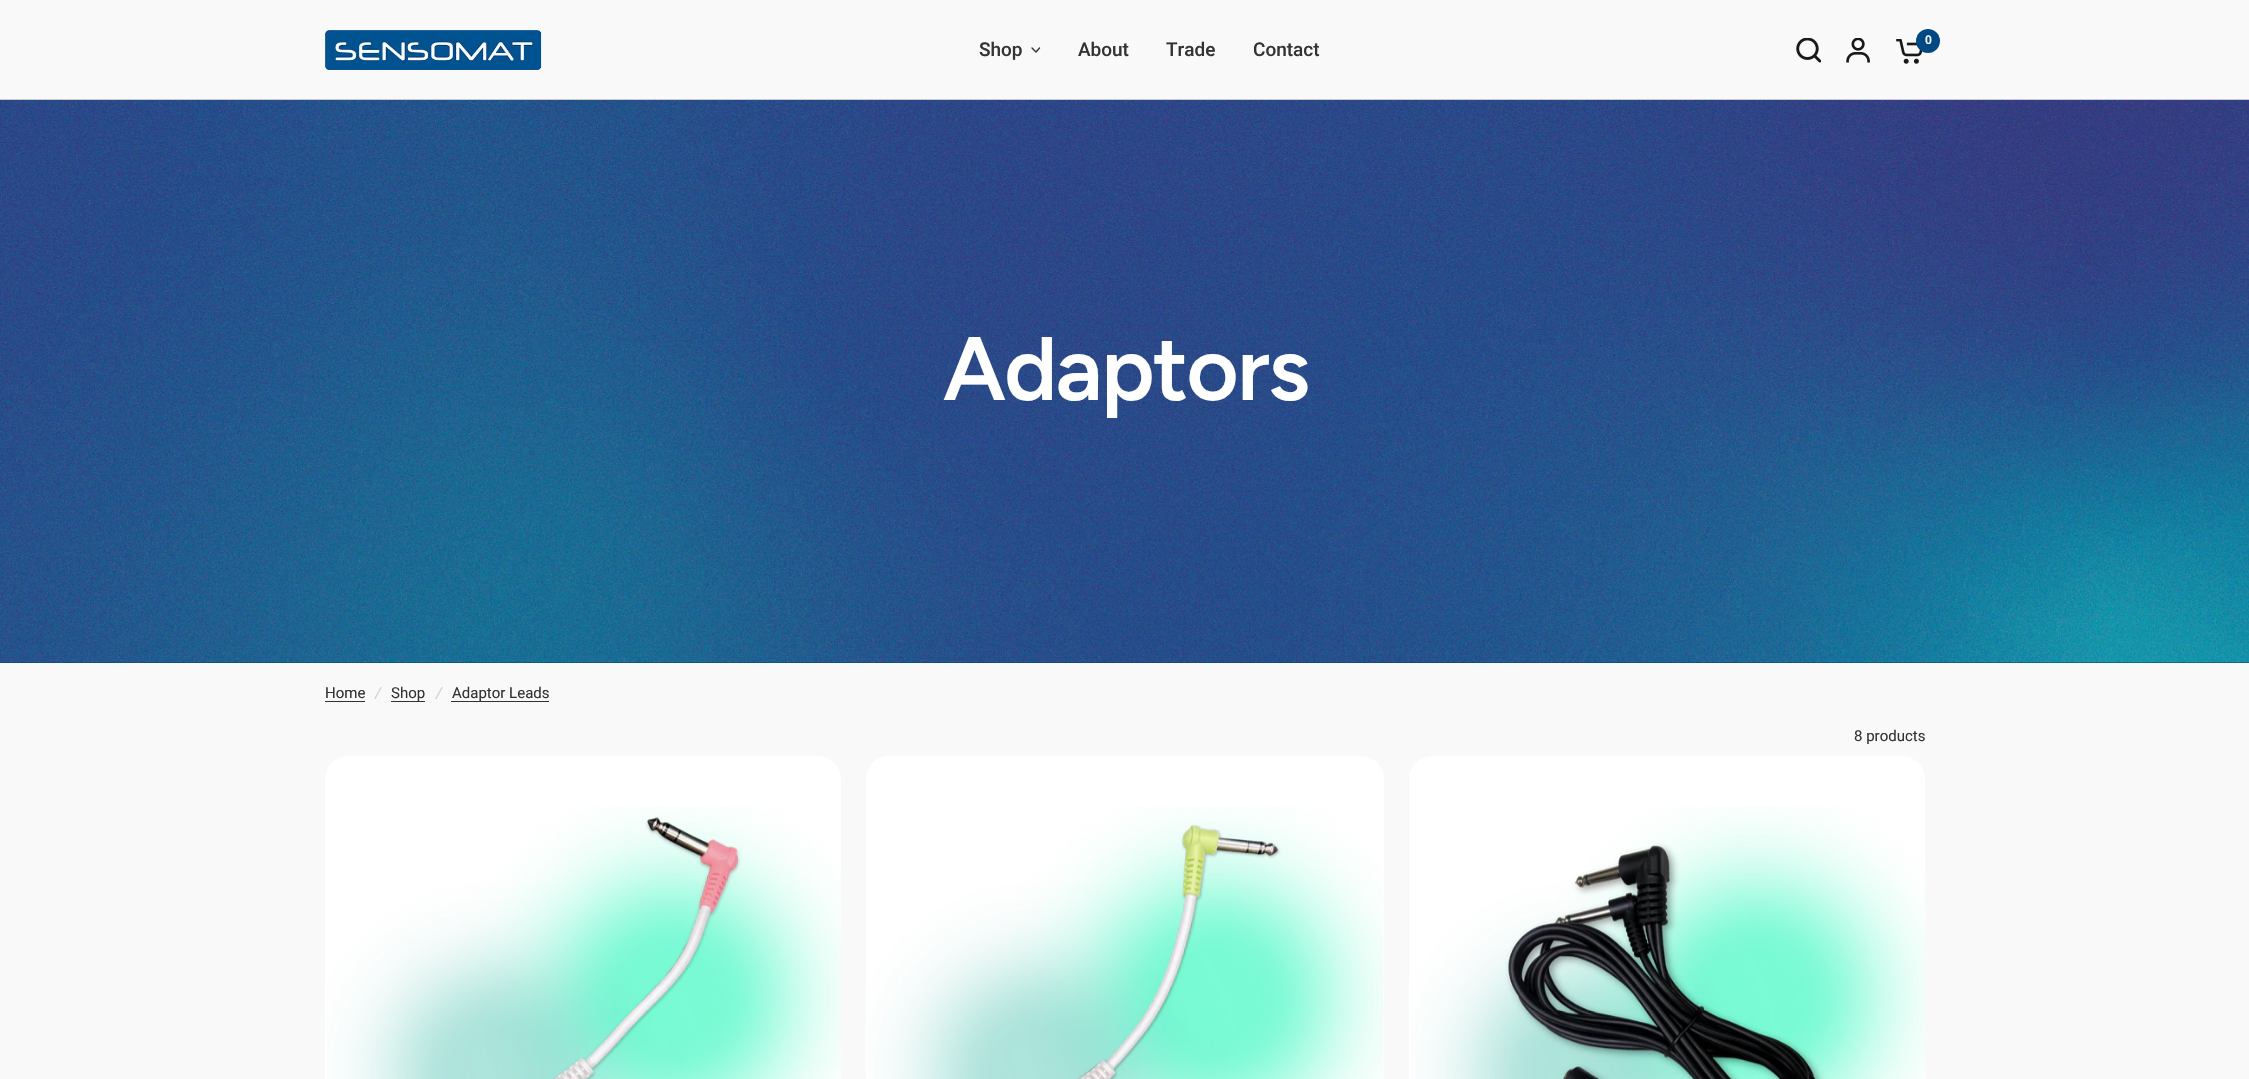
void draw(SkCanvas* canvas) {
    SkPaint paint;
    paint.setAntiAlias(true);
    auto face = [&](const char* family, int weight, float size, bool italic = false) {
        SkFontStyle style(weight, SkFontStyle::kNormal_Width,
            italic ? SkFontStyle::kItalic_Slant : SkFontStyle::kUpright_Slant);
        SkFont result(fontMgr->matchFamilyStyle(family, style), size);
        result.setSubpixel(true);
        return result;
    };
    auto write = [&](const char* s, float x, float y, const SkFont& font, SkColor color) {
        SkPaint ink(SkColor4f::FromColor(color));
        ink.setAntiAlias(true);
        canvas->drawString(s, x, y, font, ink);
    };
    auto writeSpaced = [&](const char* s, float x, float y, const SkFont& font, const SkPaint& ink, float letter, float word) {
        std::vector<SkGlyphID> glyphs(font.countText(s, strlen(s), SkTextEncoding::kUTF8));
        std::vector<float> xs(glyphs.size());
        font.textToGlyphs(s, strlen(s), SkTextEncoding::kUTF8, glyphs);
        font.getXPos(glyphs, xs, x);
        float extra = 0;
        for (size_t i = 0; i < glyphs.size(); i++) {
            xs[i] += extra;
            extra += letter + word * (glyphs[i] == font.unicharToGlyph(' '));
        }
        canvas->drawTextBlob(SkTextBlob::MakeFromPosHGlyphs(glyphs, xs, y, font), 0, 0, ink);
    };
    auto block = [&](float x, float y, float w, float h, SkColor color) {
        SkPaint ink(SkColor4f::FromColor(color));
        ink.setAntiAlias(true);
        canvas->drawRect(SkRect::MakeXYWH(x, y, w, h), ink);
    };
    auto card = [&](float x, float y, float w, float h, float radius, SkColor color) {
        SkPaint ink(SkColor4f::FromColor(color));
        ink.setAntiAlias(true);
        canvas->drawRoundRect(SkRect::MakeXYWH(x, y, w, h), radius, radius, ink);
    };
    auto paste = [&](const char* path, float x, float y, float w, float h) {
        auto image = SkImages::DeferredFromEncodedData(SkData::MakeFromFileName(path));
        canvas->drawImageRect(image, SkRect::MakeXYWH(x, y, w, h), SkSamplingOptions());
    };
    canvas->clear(SkColorSetRGB(249, 249, 249));
    paste("pic1.png", 325, 30, 217, 40);
    paste("pic2.png", 1796, 38, 25, 25);
    paste("pic3.png", 1846, 38, 24, 25);
    paste("pic4.png", 1896, 39, 27, 25);
    paint.setColor(SkColorSetRGB(2, 72, 130));
    canvas->drawCircle(1928, 41, 12, paint);
    auto kFont1 = face("Roboto", 600, 12);
    write("0", 1925, 44, kFont1, SkColorSetRGB(249, 249, 249));
    auto kFont2 = face("Roboto", 500, 19);
    write("Shop", 979, 56, kFont2, SkColorSetRGB(51, 51, 51));
    paint.setStyle(SkPaint::kStroke_Style);
    paint.setStrokeWidth(1.4f);
    paint.setStrokeCap(SkPaint::kRound_Cap);
    paint.setStrokeJoin(SkPaint::kRound_Join);
    paint.setColor(SkColorSetRGB(51, 51, 51));
    canvas->drawPath(SkPathBuilder().moveTo(1039.5f, 48).lineTo(1036, 52).lineTo(1032, 48).detach(), paint);
    write("About", 1078, 56, kFont2, SkColorSetRGB(51, 51, 51));
    write("Trade", 1166, 56, kFont2, SkColorSetRGB(51, 51, 51));
    write("Contact", 1253, 56, kFont2, SkColorSetRGB(51, 51, 51));
    block(0, 99, 2249, 1, SkColorSetRGB(202, 202, 202));
    block(0, 662, 2249, 1, SkColorSetRGB(2, 72, 130));
    paste("pic5.png", 0, 100, 2249, 563);
    auto kFont3 = face("Figtree", 600, 90);
    paint.setStyle(SkPaint::kFill_Style);
    paint.setColor(SK_ColorWHITE);
    writeSpaced("Adaptors", 943, 400, kFont3, paint, -1.75f, 0);
    auto kFont4 = face("Roboto", 400, 15);
    write("Home", 325, 698, kFont4, SkColorSetRGB(51, 51, 51));
    block(325, 701, 40, 1, SkColorSetRGB(51, 51, 51));
    auto kFont5 = face("Roboto", 400, 15, true);
    write("/", 375, 698, kFont5, SkColorSetRGB(209, 209, 209));
    block(391, 701, 34, 1, SkColorSetRGB(51, 51, 51));
    write("Shop", 391, 698, kFont4, SkColorSetRGB(51, 51, 51));
    write("/", 436, 698, kFont5, SkColorSetRGB(209, 209, 209));
    block(451, 701, 98, 1, SkColorSetRGB(51, 51, 51));
    write("Adaptor Leads", 452, 698, kFont4, SkColorSetRGB(51, 51, 51));
    write("8 products", 1854, 741, kFont4, SkColorSetRGB(51, 51, 51));
    card(325, 756, 516, 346, 23, SK_ColorWHITE);
    paste("pic6.png", 327, 806, 514, 273);
    card(866, 756, 518, 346, 23, SK_ColorWHITE);
    paste("pic7.png", 868, 806, 516, 273);
    card(1409, 756, 516, 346, 23, SK_ColorWHITE);
    paste("pic8.png", 1411, 806, 514, 273);
}
